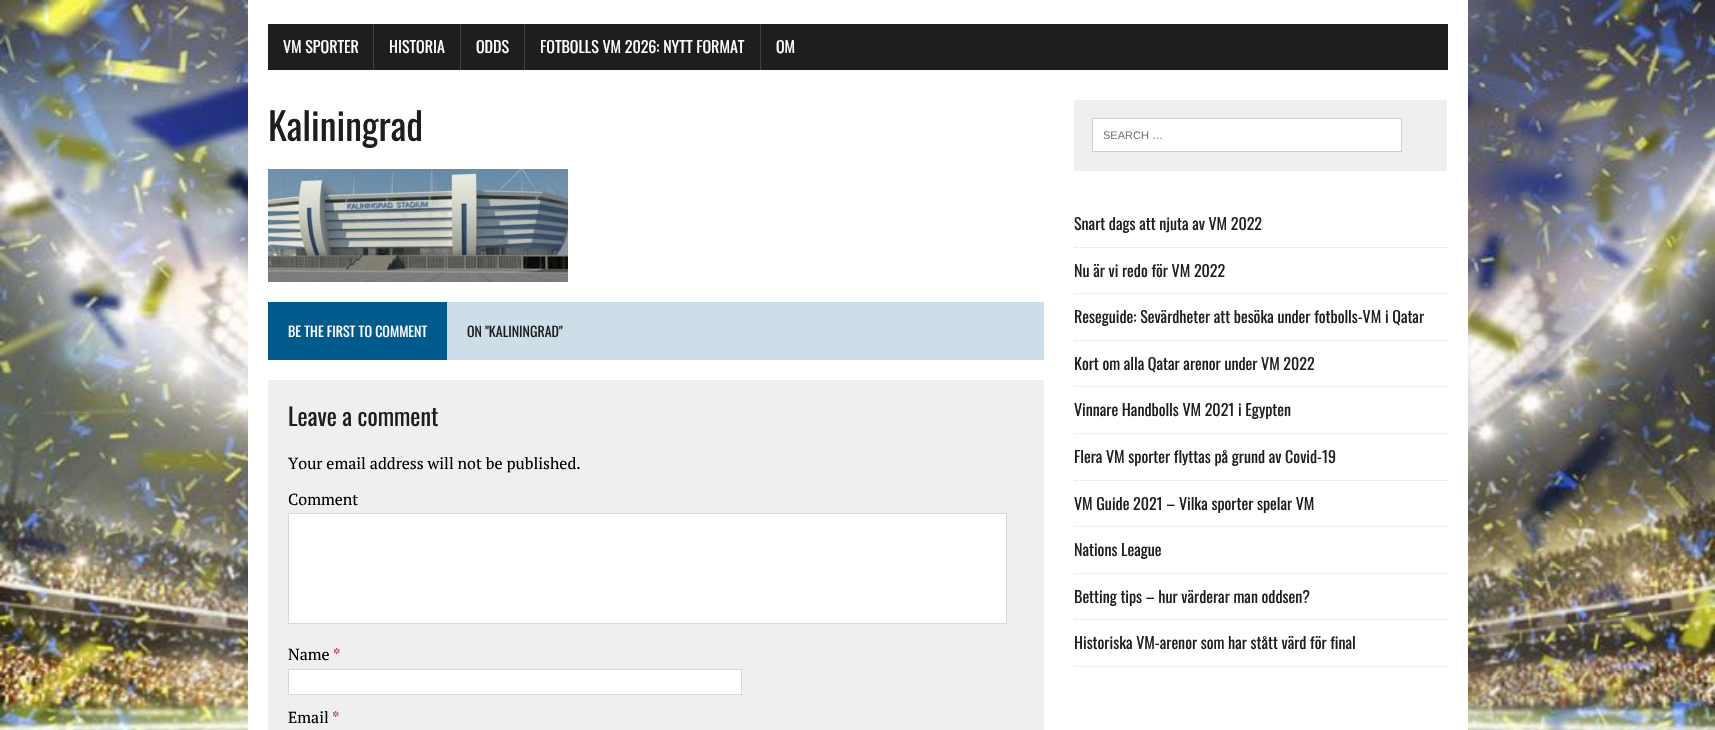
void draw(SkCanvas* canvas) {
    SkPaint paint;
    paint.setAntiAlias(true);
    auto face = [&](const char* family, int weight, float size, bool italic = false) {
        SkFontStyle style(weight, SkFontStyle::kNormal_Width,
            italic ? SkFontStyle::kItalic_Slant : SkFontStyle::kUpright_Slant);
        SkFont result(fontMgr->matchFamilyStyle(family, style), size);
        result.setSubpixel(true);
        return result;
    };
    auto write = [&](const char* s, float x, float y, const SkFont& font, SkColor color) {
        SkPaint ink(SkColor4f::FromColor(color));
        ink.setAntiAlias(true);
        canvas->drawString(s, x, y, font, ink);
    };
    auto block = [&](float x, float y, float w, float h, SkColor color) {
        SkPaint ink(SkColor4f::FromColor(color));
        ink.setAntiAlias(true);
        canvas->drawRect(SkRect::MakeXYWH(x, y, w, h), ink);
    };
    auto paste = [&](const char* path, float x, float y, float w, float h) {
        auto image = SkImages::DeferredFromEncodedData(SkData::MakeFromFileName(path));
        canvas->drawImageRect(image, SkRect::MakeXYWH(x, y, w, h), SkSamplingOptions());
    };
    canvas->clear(SK_ColorWHITE);
    paste("pic1.png", 0, 0, 1715, 730);
    block(248, 0, 1220, 730, SK_ColorWHITE);
    block(268, 24, 1180, 46, SkColorSetRGB(31, 30, 30));
    auto kFont1 = face("Oswald", 400, 16);
    write("VM SPORTER", 283, 53, kFont1, SK_ColorWHITE);
    block(373, 24, 1, 46, SkColorSetRGB(66, 66, 66));
    write("HISTORIA", 389, 53, kFont1, SK_ColorWHITE);
    block(460, 24, 1, 46, SkColorSetRGB(66, 66, 66));
    write("ODDS", 476, 53, kFont1, SK_ColorWHITE);
    block(524, 24, 1, 46, SkColorSetRGB(66, 66, 66));
    write("FOTBOLLS VM 2026: NYTT FORMAT", 540, 53, kFont1, SK_ColorWHITE);
    block(760, 24, 1, 46, SkColorSetRGB(66, 66, 66));
    write("OM", 776, 53, kFont1, SK_ColorWHITE);
    auto kFont2 = face("Oswald", 400, 38);
    write("Kaliningrad", 268, 141, kFont2, SkColorSetRGB(31, 30, 30));
    paste("pic2.png", 268, 169, 300, 113);
    block(447, 302, 597, 58, SkColorSetRGB(204, 222, 232));
    block(268, 302, 179, 58, SkColorSetRGB(0, 90, 140));
    auto kFont3 = face("Oswald", 400, 14);
    write("BE THE FIRST TO COMMENT", 288, 337, kFont3, SK_ColorWHITE);
    write("ON \"KALININGRAD\"", 467, 337, kFont3, SkColorSetRGB(31, 30, 30));
    block(268, 380, 776, 350, SkColorSetRGB(239, 239, 239));
    auto kFont4 = face("Oswald", 400, 24);
    write("Leave a comment", 288, 426, kFont4, SkColorSetRGB(31, 30, 30));
    auto kFont5 = face("PT Serif", 400, 16);
    write("Your email address will not be published.", 288, 469, kFont5, SK_ColorBLACK);
    write("Comment", 288, 505, kFont5, SK_ColorBLACK);
    paint.setColor(SK_ColorWHITE);
    canvas->drawRect(SkRect::MakeXYWH(288.5f, 513.5f, 718, 110), paint);
    paint.setStyle(SkPaint::kStroke_Style);
    paint.setStrokeWidth(1);
    paint.setColor(SkColorSetRGB(215, 216, 216));
    canvas->drawRect(SkRect::MakeXYWH(288.5f, 513.5f, 718, 110), paint);
    write("Name", 288, 660, kFont5, SK_ColorBLACK);
    write("*", 333, 660, kFont5, SkColorSetRGB(190, 40, 68));
    paint.setStyle(SkPaint::kFill_Style);
    paint.setColor(SK_ColorWHITE);
    canvas->drawRect(SkRect::MakeXYWH(288.5f, 669.5f, 453, 25), paint);
    paint.setStyle(SkPaint::kStroke_Style);
    paint.setColor(SkColorSetRGB(215, 216, 216));
    canvas->drawRect(SkRect::MakeXYWH(288.5f, 669.5f, 453, 25), paint);
    write("Email", 288, 723, kFont5, SK_ColorBLACK);
    write("*", 332, 723, kFont5, SkColorSetRGB(190, 40, 68));
    block(1074, 100, 373, 71, SkColorSetRGB(239, 239, 239));
    paint.setStyle(SkPaint::kFill_Style);
    paint.setColor(SK_ColorWHITE);
    canvas->drawRect(SkRect::MakeXYWH(1092.5f, 118.5f, 309, 33), paint);
    paint.setStyle(SkPaint::kStroke_Style);
    paint.setColor(SkColorSetRGB(205, 205, 205));
    canvas->drawRect(SkRect::MakeXYWH(1092.5f, 118.5f, 309, 33), paint);
    auto kFont6 = face("Liberation Sans", 400, 11);
    write("SEARCH …", 1103, 139, kFont6, SkColorSetRGB(117, 117, 117));
    paint.setColor(SkColorSetRGB(220, 220, 220));
    paint.setPathEffect(SkDashPathEffect::Make({{1, 1}}, 0));
    canvas->drawPath(SkPathBuilder().moveTo(1074, 247.5f).lineTo(1447, 247.5f).detach(), paint);
    paint.setPathEffect(nullptr);
    write("Snart dags att njuta av VM 2022", 1074, 230, kFont1, SkColorSetRGB(31, 30, 30));
    paint.setPathEffect(SkDashPathEffect::Make({{1, 1}}, 0));
    canvas->drawPath(SkPathBuilder().moveTo(1074, 293.5f).lineTo(1447, 293.5f).detach(), paint);
    paint.setPathEffect(nullptr);
    write("Nu är vi redo för VM 2022", 1074, 277, kFont1, SkColorSetRGB(31, 30, 30));
    paint.setPathEffect(SkDashPathEffect::Make({{1, 1}}, 0));
    canvas->drawPath(SkPathBuilder().moveTo(1074, 340.5f).lineTo(1447, 340.5f).detach(), paint);
    paint.setPathEffect(nullptr);
    write("Reseguide: Sevärdheter att besöka under fotbolls-VM i Qatar", 1074, 323, kFont1, SkColorSetRGB(31, 30, 30));
    paint.setPathEffect(SkDashPathEffect::Make({{1, 1}}, 0));
    canvas->drawPath(SkPathBuilder().moveTo(1074, 386.5f).lineTo(1447, 386.5f).detach(), paint);
    paint.setPathEffect(nullptr);
    write("Kort om alla Qatar arenor under VM 2022", 1074, 370, kFont1, SkColorSetRGB(31, 30, 30));
    paint.setPathEffect(SkDashPathEffect::Make({{1, 1}}, 0));
    canvas->drawPath(SkPathBuilder().moveTo(1074, 433.5f).lineTo(1447, 433.5f).detach(), paint);
    paint.setPathEffect(nullptr);
    write("Vinnare Handbolls VM 2021 i Egypten", 1074, 416, kFont1, SkColorSetRGB(31, 30, 30));
    paint.setPathEffect(SkDashPathEffect::Make({{1, 1}}, 0));
    canvas->drawPath(SkPathBuilder().moveTo(1074, 480.5f).lineTo(1447, 480.5f).detach(), paint);
    paint.setPathEffect(nullptr);
    write("Flera VM sporter flyttas på grund av Covid-19", 1074, 463, kFont1, SkColorSetRGB(31, 30, 30));
    paint.setPathEffect(SkDashPathEffect::Make({{1, 1}}, 0));
    canvas->drawPath(SkPathBuilder().moveTo(1074, 526.5f).lineTo(1447, 526.5f).detach(), paint);
    paint.setPathEffect(nullptr);
    write("VM Guide 2021 – Vilka sporter spelar VM", 1074, 510, kFont1, SkColorSetRGB(31, 30, 30));
    paint.setPathEffect(SkDashPathEffect::Make({{1, 1}}, 0));
    canvas->drawPath(SkPathBuilder().moveTo(1074, 573.5f).lineTo(1447, 573.5f).detach(), paint);
    paint.setPathEffect(nullptr);
    write("Nations League", 1074, 556, kFont1, SkColorSetRGB(31, 30, 30));
    paint.setPathEffect(SkDashPathEffect::Make({{1, 1}}, 0));
    canvas->drawPath(SkPathBuilder().moveTo(1074, 619.5f).lineTo(1447, 619.5f).detach(), paint);
    paint.setPathEffect(nullptr);
    write("Betting tips – hur värderar man oddsen?", 1074, 603, kFont1, SkColorSetRGB(31, 30, 30));
    paint.setPathEffect(SkDashPathEffect::Make({{1, 1}}, 0));
    canvas->drawPath(SkPathBuilder().moveTo(1074, 666.5f).lineTo(1447, 666.5f).detach(), paint);
    paint.setPathEffect(nullptr);
    write("Historiska VM-arenor som har stått värd för final", 1074, 649, kFont1, SkColorSetRGB(31, 30, 30));
}
